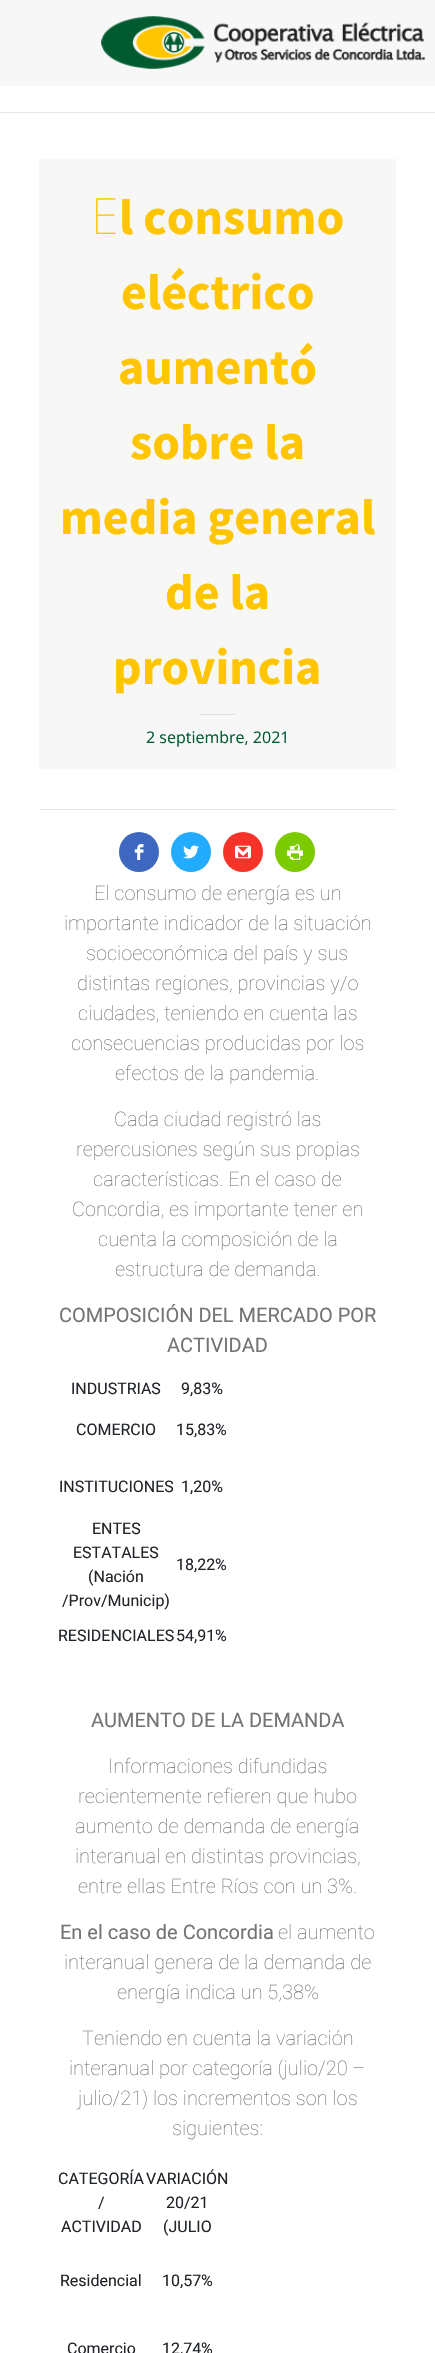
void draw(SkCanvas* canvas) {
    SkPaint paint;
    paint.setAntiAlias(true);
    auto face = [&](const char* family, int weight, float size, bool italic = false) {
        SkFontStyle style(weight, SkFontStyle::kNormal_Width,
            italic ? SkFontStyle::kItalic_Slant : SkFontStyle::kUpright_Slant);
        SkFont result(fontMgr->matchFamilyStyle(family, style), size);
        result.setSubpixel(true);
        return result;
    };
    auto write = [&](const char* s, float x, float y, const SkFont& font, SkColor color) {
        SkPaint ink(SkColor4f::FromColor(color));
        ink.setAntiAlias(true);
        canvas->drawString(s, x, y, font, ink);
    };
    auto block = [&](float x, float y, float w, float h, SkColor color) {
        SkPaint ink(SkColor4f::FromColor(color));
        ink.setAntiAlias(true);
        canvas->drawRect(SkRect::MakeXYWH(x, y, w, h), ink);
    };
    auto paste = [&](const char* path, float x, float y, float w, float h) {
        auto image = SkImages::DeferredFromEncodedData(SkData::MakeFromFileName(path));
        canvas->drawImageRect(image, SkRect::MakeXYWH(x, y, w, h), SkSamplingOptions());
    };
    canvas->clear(SK_ColorWHITE);
    block(0, 0, 435, 86, SkColorSetRGB(247, 247, 247));
    paste("pic1.png", 101, 16, 324, 53);
    block(0, 112, 435, 1, SkColorSetRGB(230, 230, 230));
    block(39, 159, 357, 610, SkColorSetRGB(247, 247, 247));
    auto kFont1 = face("Noto Sans", 100, 50);
    write("E", 91, 234, kFont1, SkColorSetRGB(255, 197, 0));
    auto kFont2 = face("Source Sans Pro", 700, 50);
    write("l consumo", 119, 234, kFont2, SkColorSetRGB(255, 197, 0));
    write("eléctrico", 121, 309, kFont2, SkColorSetRGB(255, 197, 0));
    write("aumentó", 118, 384, kFont2, SkColorSetRGB(255, 197, 0));
    write("sobre la", 130, 459, kFont2, SkColorSetRGB(255, 197, 0));
    write("media general", 60, 534, kFont2, SkColorSetRGB(255, 197, 0));
    write("de la", 165, 609, kFont2, SkColorSetRGB(255, 197, 0));
    write("provincia", 113, 684, kFont2, SkColorSetRGB(255, 197, 0));
    block(200, 714, 35, 1, SkColorSetRGB(222, 222, 222));
    auto kFont3 = face("Open Sans", 400, 16);
    write("2 septiembre, 2021", 146, 743, kFont3, SkColorSetRGB(0, 91, 48));
    block(39, 809, 357, 1, SkColorSetRGB(230, 230, 230));
    paint.setColor(SkColorSetRGB(62, 104, 192));
    canvas->drawCircle(139, 852, 20, paint);
    paste("pic2.png", 134, 844, 10, 16);
    paint.setColor(SkColorSetRGB(35, 171, 255));
    canvas->drawCircle(191, 852, 20, paint);
    paste("pic3.png", 183, 845, 16, 14);
    paint.setColor(SkColorSetRGB(246, 51, 41));
    canvas->drawCircle(243, 852, 20, paint);
    paste("pic4.png", 235, 845, 16, 14);
    paint.setColor(SkColorSetRGB(124, 202, 0));
    canvas->drawCircle(295, 852, 20, paint);
    paste("pic5.png", 287, 844, 16, 16);
    auto kFont4 = face("Roboto", 100, 20);
    write("El consumo de energía es un", 94, 900, kFont4, SkColorSetRGB(116, 116, 116));
    write("importante indicador de la situación", 64, 930, kFont4, SkColorSetRGB(116, 116, 116));
    write("socioeconómica del país y sus", 86, 960, kFont4, SkColorSetRGB(116, 116, 116));
    write("distintas regiones, provincias y/o", 77, 990, kFont4, SkColorSetRGB(116, 116, 116));
    write("ciudades, teniendo en cuenta las", 78, 1020, kFont4, SkColorSetRGB(116, 116, 116));
    write("consecuencias producidas por los", 71, 1050, kFont4, SkColorSetRGB(116, 116, 116));
    write("efectos de la pandemia.", 115, 1080, kFont4, SkColorSetRGB(116, 116, 116));
    write("Cada ciudad registró las", 114, 1126, kFont4, SkColorSetRGB(116, 116, 116));
    write("repercusiones según sus propias", 76, 1156, kFont4, SkColorSetRGB(116, 116, 116));
    write("características. En el caso de", 93, 1186, kFont4, SkColorSetRGB(116, 116, 116));
    write("Concordia, es importante tener en", 72, 1216, kFont4, SkColorSetRGB(116, 116, 116));
    write("cuenta la composición de la", 98, 1246, kFont4, SkColorSetRGB(116, 116, 116));
    write("estructura de demanda.", 115, 1276, kFont4, SkColorSetRGB(116, 116, 116));
    auto kFont5 = face("Roboto", 400, 20);
    write("COMPOSICIÓN DEL MERCADO POR", 59, 1322, kFont5, SkColorSetRGB(116, 116, 116));
    write("ACTIVIDAD", 167, 1352, kFont5, SkColorSetRGB(116, 116, 116));
    auto kFont6 = face("Roboto", 400, 16);
    write("INDUSTRIAS", 71, 1394, kFont6, SkColorSetRGB(33, 37, 41));
    write("9,83%", 181, 1394, kFont6, SkColorSetRGB(33, 37, 41));
    write("COMERCIO", 76, 1435, kFont6, SkColorSetRGB(33, 37, 41));
    write("15,83%", 176, 1435, kFont6, SkColorSetRGB(33, 37, 41));
    write("INSTITUCIONES", 59, 1492, kFont6, SkColorSetRGB(33, 37, 41));
    write("1,20%", 181, 1492, kFont6, SkColorSetRGB(33, 37, 41));
    write("ENTES", 92, 1534, kFont6, SkColorSetRGB(33, 37, 41));
    write("ESTATALES", 73, 1558, kFont6, SkColorSetRGB(33, 37, 41));
    write("(Nación", 88, 1582, kFont6, SkColorSetRGB(33, 37, 41));
    write("/Prov/Municip)", 62, 1606, kFont6, SkColorSetRGB(33, 37, 41));
    write("18,22%", 176, 1570, kFont6, SkColorSetRGB(33, 37, 41));
    write("RESIDENCIALES", 58, 1641, kFont6, SkColorSetRGB(33, 37, 41));
    write("54,91%", 176, 1641, kFont6, SkColorSetRGB(33, 37, 41));
    write("AUMENTO DE LA DEMANDA", 91, 1727, kFont5, SkColorSetRGB(116, 116, 116));
    write("Informaciones difundidas", 108, 1773, kFont4, SkColorSetRGB(116, 116, 116));
    write("recientemente refieren que hubo", 78, 1803, kFont4, SkColorSetRGB(116, 116, 116));
    write("aumento de demanda de energía", 75, 1833, kFont4, SkColorSetRGB(116, 116, 116));
    write("interanual en distintas provincias,", 75, 1863, kFont4, SkColorSetRGB(116, 116, 116));
    write("entre ellas Entre Ríos con un 3%.", 78, 1893, kFont4, SkColorSetRGB(116, 116, 116));
    write("En el caso de Concordia", 60, 1939, kFont5, SkColorSetRGB(116, 116, 116));
    write("el aumento", 278, 1939, kFont4, SkColorSetRGB(116, 116, 116));
    write("interanual genera de la demanda de", 64, 1969, kFont4, SkColorSetRGB(116, 116, 116));
    write("energía indica un 5,38%", 117, 1999, kFont4, SkColorSetRGB(116, 116, 116));
    write("Teniendo en cuenta la variación", 82, 2045, kFont4, SkColorSetRGB(116, 116, 116));
    write("interanual por categoría (julio/20 –", 69, 2075, kFont4, SkColorSetRGB(116, 116, 116));
    write("julio/21) los incrementos son los", 78, 2105, kFont4, SkColorSetRGB(116, 116, 116));
    write("siguientes:", 172, 2135, kFont4, SkColorSetRGB(116, 116, 116));
    write("CATEGORÍA", 58, 2184, kFont6, SkColorSetRGB(33, 37, 41));
    write("/", 98, 2208, kFont6, SkColorSetRGB(33, 37, 41));
    write("ACTIVIDAD", 61, 2232, kFont6, SkColorSetRGB(33, 37, 41));
    write("VARIACIÓN", 146, 2184, kFont6, SkColorSetRGB(33, 37, 41));
    write("20/21", 166, 2208, kFont6, SkColorSetRGB(33, 37, 41));
    write("(JULIO", 163, 2232, kFont6, SkColorSetRGB(33, 37, 41));
    write("Residencial", 60, 2286, kFont6, SkColorSetRGB(33, 37, 41));
    write("10,57%", 162, 2286, kFont6, SkColorSetRGB(33, 37, 41));
    write("Comercio", 67, 2354, kFont6, SkColorSetRGB(33, 37, 41));
    write("12,74%", 162, 2354, kFont6, SkColorSetRGB(33, 37, 41));
}
